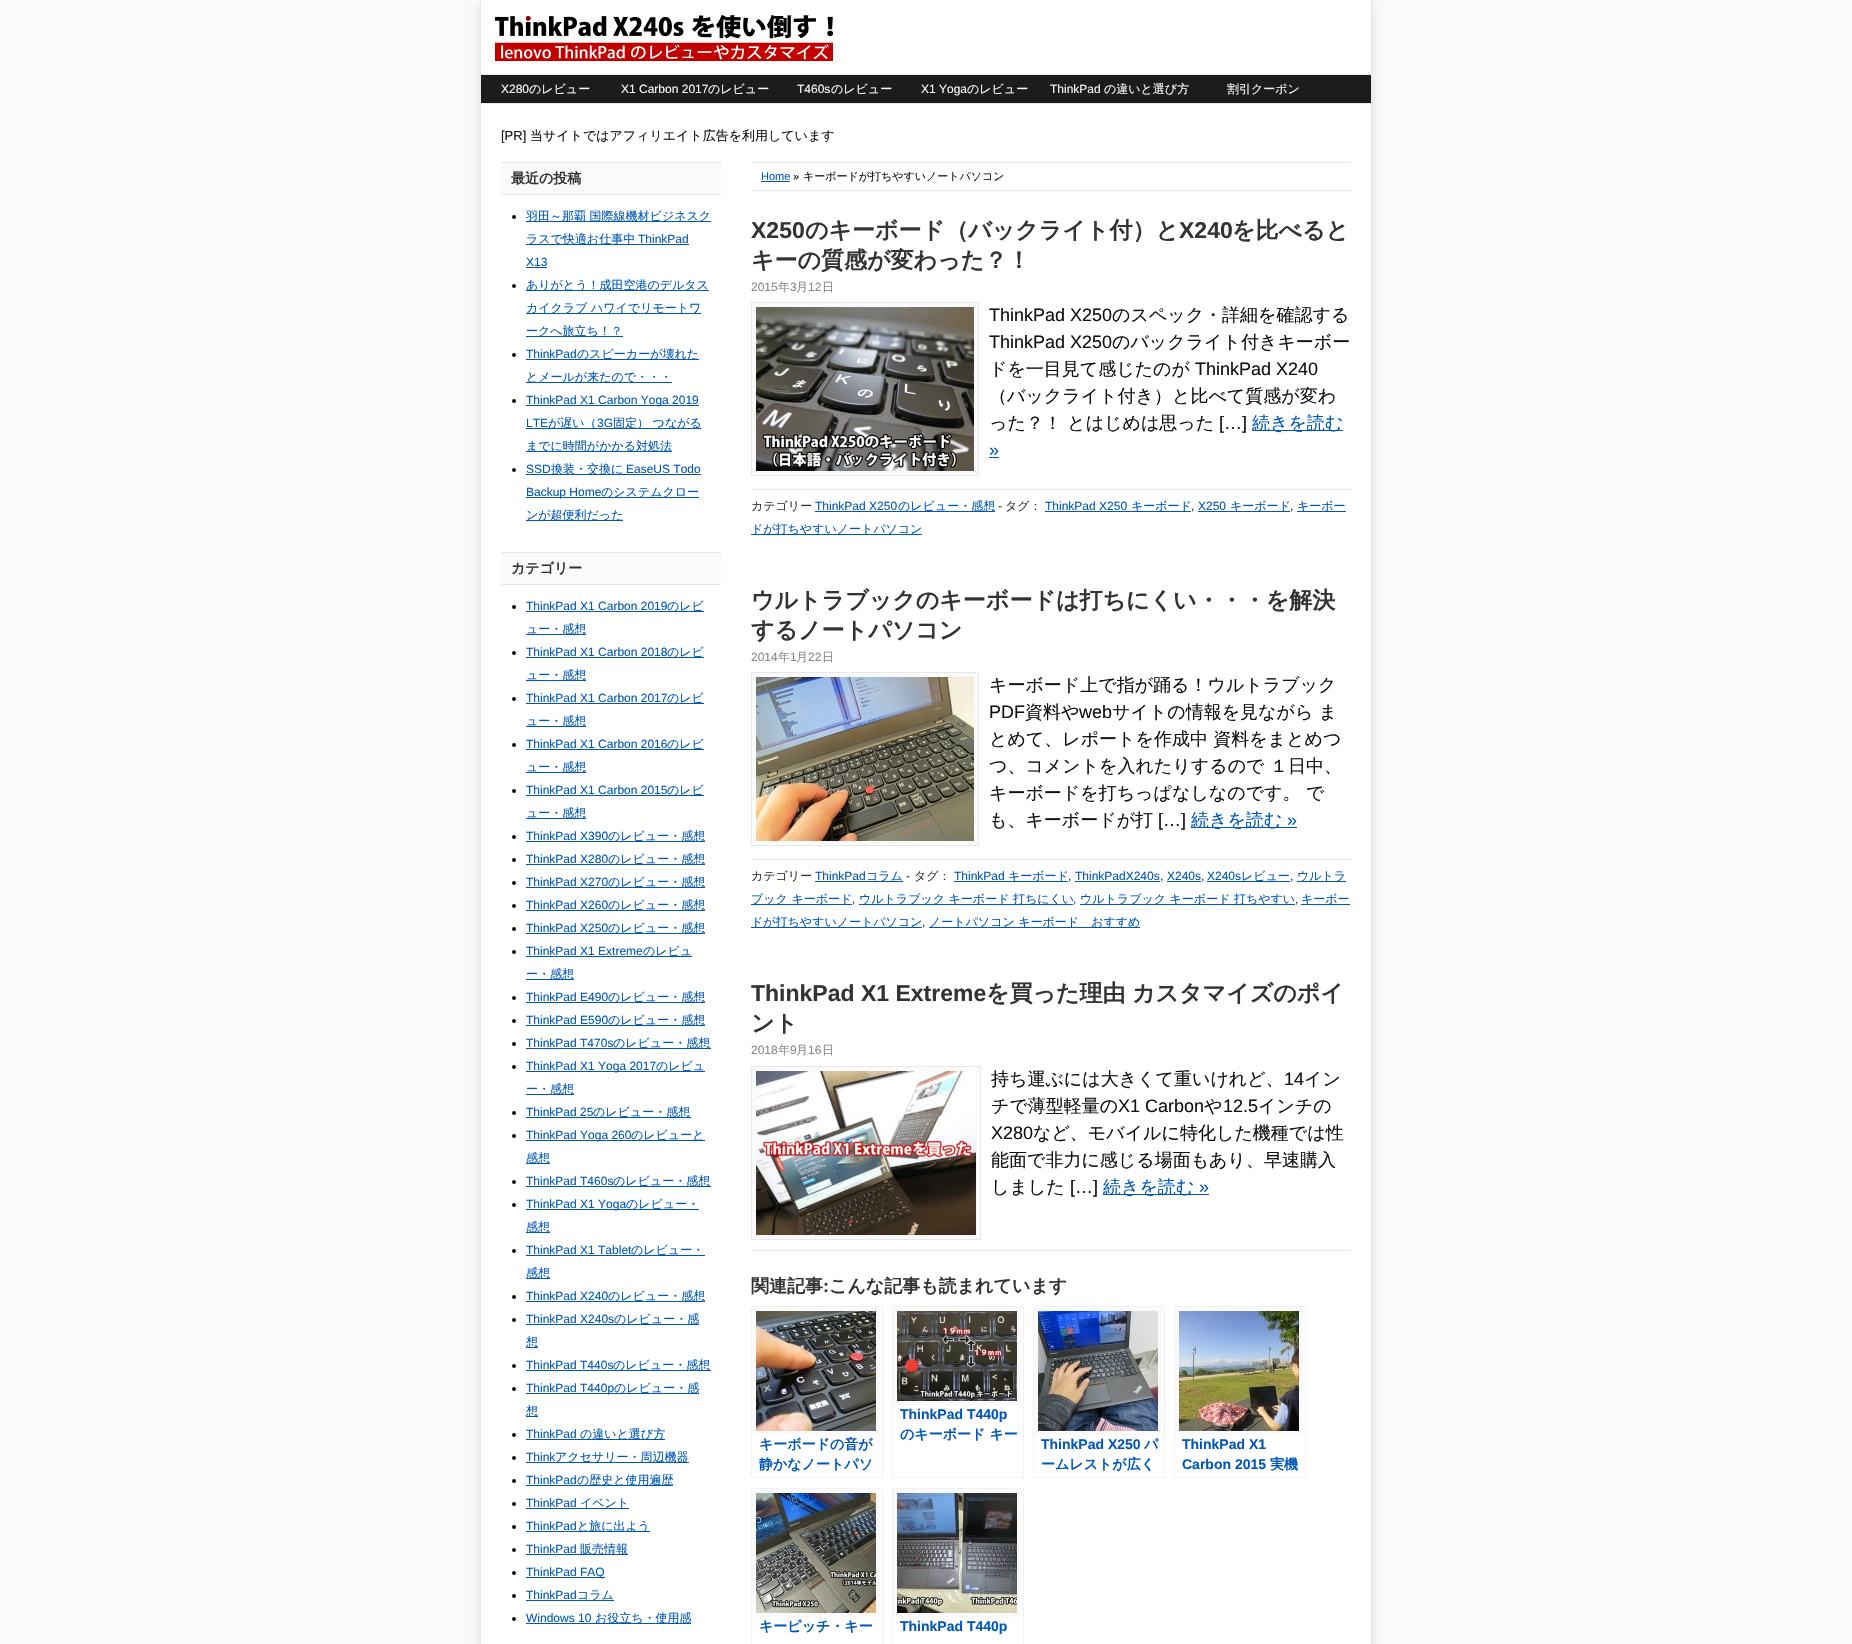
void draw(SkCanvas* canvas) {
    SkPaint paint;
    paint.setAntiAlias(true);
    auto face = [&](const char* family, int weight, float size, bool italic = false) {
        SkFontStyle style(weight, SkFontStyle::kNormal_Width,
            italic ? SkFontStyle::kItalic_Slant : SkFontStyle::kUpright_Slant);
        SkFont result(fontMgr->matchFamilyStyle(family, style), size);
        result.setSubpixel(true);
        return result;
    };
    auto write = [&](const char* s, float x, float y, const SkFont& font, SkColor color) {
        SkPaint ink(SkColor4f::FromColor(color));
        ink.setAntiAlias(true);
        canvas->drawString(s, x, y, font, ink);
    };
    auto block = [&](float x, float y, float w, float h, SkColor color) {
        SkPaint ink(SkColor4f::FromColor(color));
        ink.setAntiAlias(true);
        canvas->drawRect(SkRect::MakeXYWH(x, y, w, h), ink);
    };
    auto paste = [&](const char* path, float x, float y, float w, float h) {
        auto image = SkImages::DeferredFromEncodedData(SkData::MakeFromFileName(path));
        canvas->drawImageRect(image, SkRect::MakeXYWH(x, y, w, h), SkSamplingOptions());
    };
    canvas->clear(SkColorSetRGB(250, 250, 250));
    paint.setColor(SkColorSetRGB(221, 221, 221));
    paint.setMaskFilter(SkMaskFilter::MakeBlur(kNormal_SkBlurStyle, 5));
    canvas->drawRect(SkRect::MakeXYWH(480, 5, 892, 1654), paint);
    paint.setMaskFilter(nullptr);
    block(481, 0, 890, 1644, SK_ColorWHITE);
    block(1371, 0, 1, 16, SkColorSetRGB(232, 232, 232));
    block(480, 0, 1, 16, SkColorSetRGB(232, 232, 232));
    paste("pic1.png", 495, 15, 338, 46);
    block(481, 75, 890, 28, SkColorSetRGB(28, 28, 28));
    block(481, 74, 890, 1, SkColorSetRGB(232, 232, 232));
    block(481, 103, 890, 1, SkColorSetRGB(232, 232, 232));
    auto kFont1 = face("Liberation Sans", 400, 12);
    write("X280", 501, 93, kFont1, SkColorSetRGB(245, 245, 245));
    auto kFont2 = face("WenQuanYi Zen Hei", 500, 12);
    write("のレビュー", 529, 93, kFont2, SkColorSetRGB(245, 245, 245));
    write("X1 Carbon 2017", 621, 93, kFont1, SkColorSetRGB(245, 245, 245));
    write("のレビュー", 708, 93, kFont2, SkColorSetRGB(245, 245, 245));
    write("T460s", 797, 93, kFont1, SkColorSetRGB(245, 245, 245));
    write("のレビュー", 831, 93, kFont2, SkColorSetRGB(245, 245, 245));
    write("X1 Yoga", 921, 93, kFont1, SkColorSetRGB(245, 245, 245));
    write("のレビュー", 967, 93, kFont2, SkColorSetRGB(245, 245, 245));
    write("ThinkPad", 1050, 93, kFont1, SkColorSetRGB(245, 245, 245));
    write("の違いと選び方", 1104, 93, kFont2, SkColorSetRGB(245, 245, 245));
    write("割引クーポン", 1227, 93, kFont2, SkColorSetRGB(245, 245, 245));
    auto kFont3 = face("Liberation Sans", 400, 13);
    write("[PR]", 501, 140, kFont3, SkColorSetRGB(17, 17, 17));
    auto kFont4 = face("WenQuanYi Zen Hei", 500, 13);
    write("当サイトではアフィリエイト広告を利用しています", 530, 140, kFont4, SkColorSetRGB(17, 17, 17));
    block(501, 163, 220, 31, SkColorSetRGB(250, 250, 250));
    block(501, 162, 220, 1, SkColorSetRGB(232, 232, 232));
    block(501, 194, 220, 1, SkColorSetRGB(232, 232, 232));
    auto kFont5 = face("WenQuanYi Zen Hei", 700, 14);
    write("最近の投稿", 511, 183, kFont5, SkColorSetRGB(51, 51, 51));
    paint.setColor(SkColorSetRGB(17, 17, 17));
    canvas->drawCircle(514, 217, 2, paint);
    block(526, 221, 185, 1, SkColorSetRGB(0, 87, 184));
    write("羽田～那覇 国際線機材ビジネスク", 526, 220, kFont2, SkColorSetRGB(0, 87, 184));
    block(526, 244, 163, 1, SkColorSetRGB(0, 87, 184));
    write("ラスで快適お仕事中", 526, 243, kFont2, SkColorSetRGB(0, 87, 184));
    write("ThinkPad", 638, 243, kFont1, SkColorSetRGB(0, 87, 184));
    write("X13", 526, 266, kFont1, SkColorSetRGB(0, 87, 184));
    block(526, 267, 21, 1, SkColorSetRGB(0, 87, 184));
    canvas->drawCircle(514, 286, 2, paint);
    block(526, 290, 183, 1, SkColorSetRGB(0, 87, 184));
    write("ありがとう！成田空港のデルタス", 526, 289, kFont2, SkColorSetRGB(0, 87, 184));
    block(526, 313, 175, 1, SkColorSetRGB(0, 87, 184));
    write("カイクラブ ハワイでリモートワ", 526, 312, kFont2, SkColorSetRGB(0, 87, 184));
    block(526, 336, 97, 1, SkColorSetRGB(0, 87, 184));
    write("ークへ旅立ち！？", 526, 335, kFont2, SkColorSetRGB(0, 87, 184));
    canvas->drawCircle(514, 355, 2, paint);
    write("ThinkPad", 526, 358, kFont1, SkColorSetRGB(0, 87, 184));
    block(526, 359, 173, 1, SkColorSetRGB(0, 87, 184));
    write("のスピーカーが壊れた", 577, 358, kFont2, SkColorSetRGB(0, 87, 184));
    block(526, 382, 146, 1, SkColorSetRGB(0, 87, 184));
    write("とメールが来たので・・・", 526, 381, kFont2, SkColorSetRGB(0, 87, 184));
    canvas->drawCircle(514, 401, 2, paint);
    block(526, 405, 173, 1, SkColorSetRGB(0, 87, 184));
    write("ThinkPad X1 Carbon Yoga 2019", 526, 404, kFont1, SkColorSetRGB(0, 87, 184));
    write("LTE", 526, 427, kFont1, SkColorSetRGB(0, 87, 184));
    block(526, 428, 175, 1, SkColorSetRGB(0, 87, 184));
    write("が遅い（", 548, 427, kFont2, SkColorSetRGB(0, 87, 184));
    write("3G", 597, 427, kFont1, SkColorSetRGB(0, 87, 184));
    write("固定） つながる", 613, 427, kFont2, SkColorSetRGB(0, 87, 184));
    block(526, 451, 146, 1, SkColorSetRGB(0, 87, 184));
    write("までに時間がかかる対処法", 526, 450, kFont2, SkColorSetRGB(0, 87, 184));
    canvas->drawCircle(514, 470, 2, paint);
    write("SSD", 526, 473, kFont1, SkColorSetRGB(0, 87, 184));
    block(526, 474, 175, 1, SkColorSetRGB(0, 87, 184));
    write("換装・交換に", 551, 473, kFont2, SkColorSetRGB(0, 87, 184));
    write("EaseUS Todo", 626, 473, kFont1, SkColorSetRGB(0, 87, 184));
    block(526, 497, 173, 1, SkColorSetRGB(0, 87, 184));
    write("Backup Home", 526, 496, kFont1, SkColorSetRGB(0, 87, 184));
    write("のシステムクロー", 601, 496, kFont2, SkColorSetRGB(0, 87, 184));
    block(526, 520, 97, 1, SkColorSetRGB(0, 87, 184));
    write("ンが超便利だった", 526, 519, kFont2, SkColorSetRGB(0, 87, 184));
    block(501, 553, 220, 31, SkColorSetRGB(250, 250, 250));
    block(501, 552, 220, 1, SkColorSetRGB(232, 232, 232));
    block(501, 584, 220, 1, SkColorSetRGB(232, 232, 232));
    write("カテゴリー", 511, 573, kFont5, SkColorSetRGB(51, 51, 51));
    canvas->drawCircle(514, 607, 2, paint);
    write("ThinkPad X1 Carbon 2019", 526, 610, kFont1, SkColorSetRGB(0, 87, 184));
    block(526, 611, 178, 1, SkColorSetRGB(0, 87, 184));
    write("のレビ", 667, 610, kFont2, SkColorSetRGB(0, 87, 184));
    block(526, 634, 60, 1, SkColorSetRGB(0, 87, 184));
    write("ュー・感想", 526, 633, kFont2, SkColorSetRGB(0, 87, 184));
    canvas->drawCircle(514, 653, 2, paint);
    write("ThinkPad X1 Carbon 2018", 526, 656, kFont1, SkColorSetRGB(0, 87, 184));
    block(526, 657, 178, 1, SkColorSetRGB(0, 87, 184));
    write("のレビ", 667, 656, kFont2, SkColorSetRGB(0, 87, 184));
    block(526, 680, 60, 1, SkColorSetRGB(0, 87, 184));
    write("ュー・感想", 526, 679, kFont2, SkColorSetRGB(0, 87, 184));
    canvas->drawCircle(514, 699, 2, paint);
    write("ThinkPad X1 Carbon 2017", 526, 702, kFont1, SkColorSetRGB(0, 87, 184));
    block(526, 703, 178, 1, SkColorSetRGB(0, 87, 184));
    write("のレビ", 667, 702, kFont2, SkColorSetRGB(0, 87, 184));
    block(526, 726, 60, 1, SkColorSetRGB(0, 87, 184));
    write("ュー・感想", 526, 725, kFont2, SkColorSetRGB(0, 87, 184));
    canvas->drawCircle(514, 745, 2, paint);
    write("ThinkPad X1 Carbon 2016", 526, 748, kFont1, SkColorSetRGB(0, 87, 184));
    block(526, 749, 178, 1, SkColorSetRGB(0, 87, 184));
    write("のレビ", 667, 748, kFont2, SkColorSetRGB(0, 87, 184));
    block(526, 772, 60, 1, SkColorSetRGB(0, 87, 184));
    write("ュー・感想", 526, 771, kFont2, SkColorSetRGB(0, 87, 184));
    canvas->drawCircle(514, 791, 2, paint);
    write("ThinkPad X1 Carbon 2015", 526, 794, kFont1, SkColorSetRGB(0, 87, 184));
    block(526, 795, 178, 1, SkColorSetRGB(0, 87, 184));
    write("のレビ", 667, 794, kFont2, SkColorSetRGB(0, 87, 184));
    block(526, 818, 60, 1, SkColorSetRGB(0, 87, 184));
    write("ュー・感想", 526, 817, kFont2, SkColorSetRGB(0, 87, 184));
    canvas->drawCircle(514, 837, 2, paint);
    write("ThinkPad X390", 526, 840, kFont1, SkColorSetRGB(0, 87, 184));
    block(526, 841, 179, 1, SkColorSetRGB(0, 87, 184));
    write("のレビュー・感想", 608, 840, kFont2, SkColorSetRGB(0, 87, 184));
    canvas->drawCircle(514, 860, 2, paint);
    write("ThinkPad X280", 526, 863, kFont1, SkColorSetRGB(0, 87, 184));
    block(526, 864, 179, 1, SkColorSetRGB(0, 87, 184));
    write("のレビュー・感想", 608, 863, kFont2, SkColorSetRGB(0, 87, 184));
    canvas->drawCircle(514, 883, 2, paint);
    write("ThinkPad X270", 526, 886, kFont1, SkColorSetRGB(0, 87, 184));
    block(526, 887, 179, 1, SkColorSetRGB(0, 87, 184));
    write("のレビュー・感想", 608, 886, kFont2, SkColorSetRGB(0, 87, 184));
    canvas->drawCircle(514, 906, 2, paint);
    write("ThinkPad X260", 526, 909, kFont1, SkColorSetRGB(0, 87, 184));
    block(526, 910, 179, 1, SkColorSetRGB(0, 87, 184));
    write("のレビュー・感想", 608, 909, kFont2, SkColorSetRGB(0, 87, 184));
    canvas->drawCircle(514, 929, 2, paint);
    write("ThinkPad X250", 526, 932, kFont1, SkColorSetRGB(0, 87, 184));
    block(526, 933, 179, 1, SkColorSetRGB(0, 87, 184));
    write("のレビュー・感想", 608, 932, kFont2, SkColorSetRGB(0, 87, 184));
    canvas->drawCircle(514, 952, 2, paint);
    write("ThinkPad X1 Extreme", 526, 955, kFont1, SkColorSetRGB(0, 87, 184));
    block(526, 956, 166, 1, SkColorSetRGB(0, 87, 184));
    write("のレビュ", 643, 955, kFont2, SkColorSetRGB(0, 87, 184));
    block(526, 979, 48, 1, SkColorSetRGB(0, 87, 184));
    write("ー・感想", 526, 978, kFont2, SkColorSetRGB(0, 87, 184));
    canvas->drawCircle(514, 998, 2, paint);
    write("ThinkPad E490", 526, 1001, kFont1, SkColorSetRGB(0, 87, 184));
    block(526, 1002, 179, 1, SkColorSetRGB(0, 87, 184));
    write("のレビュー・感想", 608, 1001, kFont2, SkColorSetRGB(0, 87, 184));
    canvas->drawCircle(514, 1021, 2, paint);
    write("ThinkPad E590", 526, 1024, kFont1, SkColorSetRGB(0, 87, 184));
    block(526, 1025, 179, 1, SkColorSetRGB(0, 87, 184));
    write("のレビュー・感想", 608, 1024, kFont2, SkColorSetRGB(0, 87, 184));
    canvas->drawCircle(514, 1044, 2, paint);
    write("ThinkPad T470s", 526, 1047, kFont1, SkColorSetRGB(0, 87, 184));
    block(526, 1048, 185, 1, SkColorSetRGB(0, 87, 184));
    write("のレビュー・感想", 613, 1047, kFont2, SkColorSetRGB(0, 87, 184));
    canvas->drawCircle(514, 1067, 2, paint);
    block(526, 1071, 179, 1, SkColorSetRGB(0, 87, 184));
    write("ThinkPad X1 Yoga 2017", 526, 1070, kFont1, SkColorSetRGB(0, 87, 184));
    write("のレビュ", 656, 1070, kFont2, SkColorSetRGB(0, 87, 184));
    block(526, 1094, 48, 1, SkColorSetRGB(0, 87, 184));
    write("ー・感想", 526, 1093, kFont2, SkColorSetRGB(0, 87, 184));
    canvas->drawCircle(514, 1113, 2, paint);
    write("ThinkPad 25", 526, 1116, kFont1, SkColorSetRGB(0, 87, 184));
    block(526, 1117, 165, 1, SkColorSetRGB(0, 87, 184));
    write("のレビュー・感想", 593, 1116, kFont2, SkColorSetRGB(0, 87, 184));
    canvas->drawCircle(514, 1136, 2, paint);
    block(526, 1140, 179, 1, SkColorSetRGB(0, 87, 184));
    write("ThinkPad Yoga 260", 526, 1139, kFont1, SkColorSetRGB(0, 87, 184));
    write("のレビューと", 631, 1139, kFont2, SkColorSetRGB(0, 87, 184));
    block(526, 1163, 24, 1, SkColorSetRGB(0, 87, 184));
    write("感想", 526, 1162, kFont2, SkColorSetRGB(0, 87, 184));
    canvas->drawCircle(514, 1182, 2, paint);
    write("ThinkPad T460s", 526, 1185, kFont1, SkColorSetRGB(0, 87, 184));
    block(526, 1186, 185, 1, SkColorSetRGB(0, 87, 184));
    write("のレビュー・感想", 613, 1185, kFont2, SkColorSetRGB(0, 87, 184));
    canvas->drawCircle(514, 1205, 2, paint);
    block(526, 1209, 173, 1, SkColorSetRGB(0, 87, 184));
    write("ThinkPad X1 Yoga", 526, 1208, kFont1, SkColorSetRGB(0, 87, 184));
    write("のレビュー・", 626, 1208, kFont2, SkColorSetRGB(0, 87, 184));
    block(526, 1232, 24, 1, SkColorSetRGB(0, 87, 184));
    write("感想", 526, 1231, kFont2, SkColorSetRGB(0, 87, 184));
    canvas->drawCircle(514, 1251, 2, paint);
    write("ThinkPad X1 Tablet", 526, 1254, kFont1, SkColorSetRGB(0, 87, 184));
    block(526, 1255, 179, 1, SkColorSetRGB(0, 87, 184));
    write("のレビュー・", 631, 1254, kFont2, SkColorSetRGB(0, 87, 184));
    block(526, 1278, 24, 1, SkColorSetRGB(0, 87, 184));
    write("感想", 526, 1277, kFont2, SkColorSetRGB(0, 87, 184));
    canvas->drawCircle(514, 1297, 2, paint);
    write("ThinkPad X240", 526, 1300, kFont1, SkColorSetRGB(0, 87, 184));
    block(526, 1301, 179, 1, SkColorSetRGB(0, 87, 184));
    write("のレビュー・感想", 608, 1300, kFont2, SkColorSetRGB(0, 87, 184));
    canvas->drawCircle(514, 1320, 2, paint);
    write("ThinkPad X240s", 526, 1323, kFont1, SkColorSetRGB(0, 87, 184));
    block(526, 1324, 173, 1, SkColorSetRGB(0, 87, 184));
    write("のレビュー・感", 614, 1323, kFont2, SkColorSetRGB(0, 87, 184));
    block(526, 1347, 12, 1, SkColorSetRGB(0, 87, 184));
    write("想", 526, 1346, kFont2, SkColorSetRGB(0, 87, 184));
    canvas->drawCircle(514, 1366, 2, paint);
    write("ThinkPad T440s", 526, 1369, kFont1, SkColorSetRGB(0, 87, 184));
    block(526, 1370, 185, 1, SkColorSetRGB(0, 87, 184));
    write("のレビュー・感想", 613, 1369, kFont2, SkColorSetRGB(0, 87, 184));
    canvas->drawCircle(514, 1389, 2, paint);
    block(526, 1393, 173, 1, SkColorSetRGB(0, 87, 184));
    write("ThinkPad T440p", 526, 1392, kFont1, SkColorSetRGB(0, 87, 184));
    write("のレビュー・感", 614, 1392, kFont2, SkColorSetRGB(0, 87, 184));
    block(526, 1416, 12, 1, SkColorSetRGB(0, 87, 184));
    write("想", 526, 1415, kFont2, SkColorSetRGB(0, 87, 184));
    canvas->drawCircle(514, 1435, 2, paint);
    write("ThinkPad", 526, 1438, kFont1, SkColorSetRGB(0, 87, 184));
    block(526, 1439, 139, 1, SkColorSetRGB(0, 87, 184));
    write("の違いと選び方", 580, 1438, kFont2, SkColorSetRGB(0, 87, 184));
    canvas->drawCircle(514, 1458, 2, paint);
    write("Think", 526, 1461, kFont1, SkColorSetRGB(0, 87, 184));
    block(526, 1462, 163, 1, SkColorSetRGB(0, 87, 184));
    write("アクセサリー・周辺機器", 555, 1461, kFont2, SkColorSetRGB(0, 87, 184));
    canvas->drawCircle(514, 1481, 2, paint);
    write("ThinkPad", 526, 1484, kFont1, SkColorSetRGB(0, 87, 184));
    block(526, 1485, 147, 1, SkColorSetRGB(0, 87, 184));
    write("の歴史と使用遍歴", 577, 1484, kFont2, SkColorSetRGB(0, 87, 184));
    canvas->drawCircle(514, 1504, 2, paint);
    write("ThinkPad", 526, 1507, kFont1, SkColorSetRGB(0, 87, 184));
    block(526, 1508, 103, 1, SkColorSetRGB(0, 87, 184));
    write("イベント", 580, 1507, kFont2, SkColorSetRGB(0, 87, 184));
    canvas->drawCircle(514, 1527, 2, paint);
    write("ThinkPad", 526, 1530, kFont1, SkColorSetRGB(0, 87, 184));
    block(526, 1531, 124, 1, SkColorSetRGB(0, 87, 184));
    write("と旅に出よう", 577, 1530, kFont2, SkColorSetRGB(0, 87, 184));
    canvas->drawCircle(514, 1550, 2, paint);
    write("ThinkPad", 526, 1553, kFont1, SkColorSetRGB(0, 87, 184));
    block(526, 1554, 102, 1, SkColorSetRGB(0, 87, 184));
    write("販売情報", 580, 1553, kFont2, SkColorSetRGB(0, 87, 184));
    canvas->drawCircle(514, 1573, 2, paint);
    block(526, 1577, 79, 1, SkColorSetRGB(0, 87, 184));
    write("ThinkPad FAQ", 526, 1576, kFont1, SkColorSetRGB(0, 87, 184));
    canvas->drawCircle(514, 1596, 2, paint);
    write("ThinkPad", 526, 1599, kFont1, SkColorSetRGB(0, 87, 184));
    block(526, 1600, 88, 1, SkColorSetRGB(0, 87, 184));
    write("コラム", 577, 1599, kFont2, SkColorSetRGB(0, 87, 184));
    canvas->drawCircle(514, 1619, 2, paint);
    write("Windows 10", 526, 1622, kFont1, SkColorSetRGB(0, 87, 184));
    block(526, 1623, 165, 1, SkColorSetRGB(0, 87, 184));
    write("お役立ち・使用感", 595, 1622, kFont2, SkColorSetRGB(0, 87, 184));
    block(751, 162, 600, 1, SkColorSetRGB(232, 232, 232));
    block(751, 190, 600, 1, SkColorSetRGB(232, 232, 232));
    auto kFont6 = face("Liberation Sans", 400, 11);
    write("Home", 761, 180, kFont6, SkColorSetRGB(0, 87, 184));
    block(761, 181, 29, 1, SkColorSetRGB(0, 87, 184));
    write("»", 793, 180, kFont6, SkColorSetRGB(17, 17, 17));
    auto kFont7 = face("WenQuanYi Zen Hei", 500, 11);
    write("キーボードが打ちやすいノートパソコン", 803, 180, kFont7, SkColorSetRGB(17, 17, 17));
    auto kFont8 = face("Liberation Sans", 700, 23);
    write("X250", 751, 238, kFont8, SkColorSetRGB(51, 51, 51));
    auto kFont9 = face("WenQuanYi Zen Hei", 700, 23);
    write("のキーボード（バックライト付）と", 805, 238, kFont9, SkColorSetRGB(51, 51, 51));
    write("X240", 1179, 238, kFont8, SkColorSetRGB(51, 51, 51));
    write("を比べると", 1232, 238, kFont9, SkColorSetRGB(51, 51, 51));
    write("キーの質感が変わった？！", 751, 268, kFont9, SkColorSetRGB(51, 51, 51));
    write("2015", 751, 291, kFont1, SkColorSetRGB(136, 136, 136));
    write("年", 778, 291, kFont2, SkColorSetRGB(136, 136, 136));
    write("3", 790, 291, kFont1, SkColorSetRGB(136, 136, 136));
    write("月", 796, 291, kFont2, SkColorSetRGB(136, 136, 136));
    write("12", 808, 291, kFont1, SkColorSetRGB(136, 136, 136));
    write("日", 822, 291, kFont2, SkColorSetRGB(136, 136, 136));
    paint.setColor(SkColorSetRGB(250, 250, 250));
    canvas->drawRect(SkRect::MakeXYWH(751.5f, 302.5f, 227, 173), paint);
    paint.setStyle(SkPaint::kStroke_Style);
    paint.setStrokeWidth(1);
    paint.setColor(SkColorSetRGB(232, 232, 232));
    canvas->drawRect(SkRect::MakeXYWH(751.5f, 302.5f, 227, 173), paint);
    paste("pic2.png", 756, 307, 218, 164);
    auto kFont10 = face("Liberation Sans", 400, 18);
    write("ThinkPad X250", 989, 321, kFont10, SkColorSetRGB(17, 17, 17));
    auto kFont11 = face("WenQuanYi Zen Hei", 500, 18);
    write("のスペック・詳細を確認する", 1112, 321, kFont11, SkColorSetRGB(17, 17, 17));
    write("ThinkPad X250", 989, 348, kFont10, SkColorSetRGB(17, 17, 17));
    write("のバックライト付きキーボー", 1112, 348, kFont11, SkColorSetRGB(17, 17, 17));
    write("ドを一目見て感じたのが", 989, 375, kFont11, SkColorSetRGB(17, 17, 17));
    write("ThinkPad X240", 1195, 375, kFont10, SkColorSetRGB(17, 17, 17));
    write("（バックライト付き）と比べて質感が変わ", 989, 402, kFont11, SkColorSetRGB(17, 17, 17));
    write("った？！ とはじめは思った", 989, 429, kFont11, SkColorSetRGB(17, 17, 17));
    write("[…]", 1219, 429, kFont10, SkColorSetRGB(17, 17, 17));
    block(1252, 430, 91, 1, SkColorSetRGB(0, 87, 184));
    write("続きを読む", 1252, 429, kFont11, SkColorSetRGB(0, 87, 184));
    write("»", 989, 456, kFont10, SkColorSetRGB(0, 87, 184));
    block(989, 457, 10, 1, SkColorSetRGB(0, 87, 184));
    block(751, 489, 600, 1, SkColorSetRGB(232, 232, 232));
    write("カテゴリー", 751, 510, kFont2, SkColorSetRGB(51, 51, 51));
    write("ThinkPad X250", 815, 510, kFont1, SkColorSetRGB(0, 87, 184));
    block(815, 511, 180, 1, SkColorSetRGB(0, 87, 184));
    write("のレビュー・感想", 898, 510, kFont2, SkColorSetRGB(0, 87, 184));
    write("-", 998, 510, kFont1, SkColorSetRGB(51, 51, 51));
    write("タグ：", 1005, 510, kFont2, SkColorSetRGB(51, 51, 51));
    write("ThinkPad X250", 1045, 510, kFont1, SkColorSetRGB(0, 87, 184));
    block(1045, 511, 146, 1, SkColorSetRGB(0, 87, 184));
    write("キーボード", 1131, 510, kFont2, SkColorSetRGB(0, 87, 184));
    write("X250", 1198, 510, kFont1, SkColorSetRGB(0, 87, 184));
    block(1198, 511, 92, 1, SkColorSetRGB(0, 87, 184));
    write("キーボード", 1230, 510, kFont2, SkColorSetRGB(0, 87, 184));
    block(1297, 511, 49, 1, SkColorSetRGB(0, 87, 184));
    write("キーボー", 1297, 510, kFont2, SkColorSetRGB(0, 87, 184));
    write(",", 1191, 510, kFont1, SkColorSetRGB(51, 51, 51));
    write(",", 1290, 510, kFont1, SkColorSetRGB(51, 51, 51));
    block(751, 534, 171, 1, SkColorSetRGB(0, 87, 184));
    write("ドが打ちやすいノートパソコン", 751, 533, kFont2, SkColorSetRGB(0, 87, 184));
    write("ウルトラブックのキーボードは打ちにくい・・・を解決", 751, 608, kFont9, SkColorSetRGB(51, 51, 51));
    write("するノートパソコン", 751, 638, kFont9, SkColorSetRGB(51, 51, 51));
    write("2014", 751, 661, kFont1, SkColorSetRGB(136, 136, 136));
    write("年", 778, 661, kFont2, SkColorSetRGB(136, 136, 136));
    write("1", 790, 661, kFont1, SkColorSetRGB(136, 136, 136));
    write("月", 796, 661, kFont2, SkColorSetRGB(136, 136, 136));
    write("22", 808, 661, kFont1, SkColorSetRGB(136, 136, 136));
    write("日", 822, 661, kFont2, SkColorSetRGB(136, 136, 136));
    paint.setStyle(SkPaint::kFill_Style);
    paint.setColor(SkColorSetRGB(250, 250, 250));
    canvas->drawRect(SkRect::MakeXYWH(751.5f, 672.5f, 227, 173), paint);
    paint.setStyle(SkPaint::kStroke_Style);
    paint.setColor(SkColorSetRGB(232, 232, 232));
    canvas->drawRect(SkRect::MakeXYWH(751.5f, 672.5f, 227, 173), paint);
    paste("pic3.png", 756, 677, 218, 164);
    write("キーボード上で指が踊る！ウルトラブック", 989, 691, kFont11, SkColorSetRGB(17, 17, 17));
    write("PDF", 989, 718, kFont10, SkColorSetRGB(17, 17, 17));
    write("資料や", 1025, 718, kFont11, SkColorSetRGB(17, 17, 17));
    write("web", 1079, 718, kFont10, SkColorSetRGB(17, 17, 17));
    write("サイトの情報を見ながら ま", 1112, 718, kFont11, SkColorSetRGB(17, 17, 17));
    write("とめて、レポートを作成中 資料をまとめつ", 989, 745, kFont11, SkColorSetRGB(17, 17, 17));
    write("つ、コメントを入れたりするので １日中、", 989, 772, kFont11, SkColorSetRGB(17, 17, 17));
    write("キーボードを打ちっぱなしなのです。 で", 989, 799, kFont11, SkColorSetRGB(17, 17, 17));
    write("も、キーボードが打", 989, 826, kFont11, SkColorSetRGB(17, 17, 17));
    write("[…]", 1158, 826, kFont10, SkColorSetRGB(17, 17, 17));
    block(1191, 827, 106, 1, SkColorSetRGB(0, 87, 184));
    write("続きを読む", 1191, 826, kFont11, SkColorSetRGB(0, 87, 184));
    write("»", 1287, 826, kFont10, SkColorSetRGB(0, 87, 184));
    block(751, 859, 600, 1, SkColorSetRGB(232, 232, 232));
    write("カテゴリー", 751, 880, kFont2, SkColorSetRGB(51, 51, 51));
    write("ThinkPad", 815, 880, kFont1, SkColorSetRGB(0, 87, 184));
    block(815, 881, 88, 1, SkColorSetRGB(0, 87, 184));
    write("コラム", 866, 880, kFont2, SkColorSetRGB(0, 87, 184));
    write("-", 906, 880, kFont1, SkColorSetRGB(51, 51, 51));
    write("タグ：", 914, 880, kFont2, SkColorSetRGB(51, 51, 51));
    write("ThinkPad", 954, 880, kFont1, SkColorSetRGB(0, 87, 184));
    block(954, 881, 114, 1, SkColorSetRGB(0, 87, 184));
    write("キーボード", 1008, 880, kFont2, SkColorSetRGB(0, 87, 184));
    write("ThinkPadX240s", 1075, 880, kFont1, SkColorSetRGB(0, 87, 184));
    write("X240s", 1167, 880, kFont1, SkColorSetRGB(0, 87, 184));
    write("X240s", 1207, 880, kFont1, SkColorSetRGB(0, 87, 184));
    write("レビュー", 1241, 880, kFont2, SkColorSetRGB(0, 87, 184));
    block(1297, 881, 49, 1, SkColorSetRGB(0, 87, 184));
    write("ウルトラ", 1297, 880, kFont2, SkColorSetRGB(0, 87, 184));
    write(",", 1068, 880, kFont1, SkColorSetRGB(51, 51, 51));
    write(",", 1160, 880, kFont1, SkColorSetRGB(51, 51, 51));
    block(1075, 881, 85, 1, SkColorSetRGB(0, 87, 184));
    write(",", 1201, 880, kFont1, SkColorSetRGB(51, 51, 51));
    block(1167, 881, 34, 1, SkColorSetRGB(0, 87, 184));
    write(",", 1290, 880, kFont1, SkColorSetRGB(51, 51, 51));
    block(1207, 881, 83, 1, SkColorSetRGB(0, 87, 184));
    block(751, 904, 101, 1, SkColorSetRGB(0, 87, 184));
    write("ブック キーボード", 751, 903, kFont2, SkColorSetRGB(0, 87, 184));
    write(",", 852, 903, kFont1, SkColorSetRGB(51, 51, 51));
    block(859, 904, 214, 1, SkColorSetRGB(0, 87, 184));
    write("ウルトラブック キーボード 打ちにくい", 859, 903, kFont2, SkColorSetRGB(0, 87, 184));
    write(",", 1073, 903, kFont1, SkColorSetRGB(51, 51, 51));
    block(1080, 904, 215, 1, SkColorSetRGB(0, 87, 184));
    write("ウルトラブック キーボード 打ちやすい", 1080, 903, kFont2, SkColorSetRGB(0, 87, 184));
    write(",", 1295, 903, kFont1, SkColorSetRGB(51, 51, 51));
    block(1301, 904, 49, 1, SkColorSetRGB(0, 87, 184));
    write("キーボー", 1301, 903, kFont2, SkColorSetRGB(0, 87, 184));
    block(751, 927, 171, 1, SkColorSetRGB(0, 87, 184));
    write("ドが打ちやすいノートパソコン", 751, 926, kFont2, SkColorSetRGB(0, 87, 184));
    write(",", 922, 926, kFont1, SkColorSetRGB(51, 51, 51));
    block(929, 927, 211, 1, SkColorSetRGB(0, 87, 184));
    write("ノートパソコン キーボード　おすすめ", 929, 926, kFont2, SkColorSetRGB(0, 87, 184));
    write("ThinkPad X1 Extreme", 751, 1001, kFont8, SkColorSetRGB(51, 51, 51));
    write("を買った理由", 986, 1001, kFont9, SkColorSetRGB(51, 51, 51));
    write("カスタマイズのポイ", 1132, 1001, kFont9, SkColorSetRGB(51, 51, 51));
    write("ント", 751, 1031, kFont9, SkColorSetRGB(51, 51, 51));
    write("2018", 751, 1054, kFont1, SkColorSetRGB(136, 136, 136));
    write("年", 778, 1054, kFont2, SkColorSetRGB(136, 136, 136));
    write("9", 790, 1054, kFont1, SkColorSetRGB(136, 136, 136));
    write("月", 796, 1054, kFont2, SkColorSetRGB(136, 136, 136));
    write("16", 808, 1054, kFont1, SkColorSetRGB(136, 136, 136));
    write("日", 822, 1054, kFont2, SkColorSetRGB(136, 136, 136));
    paint.setStyle(SkPaint::kFill_Style);
    paint.setColor(SkColorSetRGB(250, 250, 250));
    canvas->drawRect(SkRect::MakeXYWH(751.5f, 1066.5f, 229, 173), paint);
    paint.setStyle(SkPaint::kStroke_Style);
    paint.setColor(SkColorSetRGB(232, 232, 232));
    canvas->drawRect(SkRect::MakeXYWH(751.5f, 1066.5f, 229, 173), paint);
    paste("pic4.png", 756, 1071, 220, 164);
    write("持ち運ぶには大きくて重いけれど、", 991, 1085, kFont11, SkColorSetRGB(17, 17, 17));
    write("14", 1284, 1085, kFont10, SkColorSetRGB(17, 17, 17));
    write("イン", 1304, 1085, kFont11, SkColorSetRGB(17, 17, 17));
    write("チで薄型軽量の", 991, 1112, kFont11, SkColorSetRGB(17, 17, 17));
    write("X1 Carbon", 1118, 1112, kFont10, SkColorSetRGB(17, 17, 17));
    write("や", 1204, 1112, kFont11, SkColorSetRGB(17, 17, 17));
    write("12.5", 1223, 1112, kFont10, SkColorSetRGB(17, 17, 17));
    write("インチの", 1258, 1112, kFont11, SkColorSetRGB(17, 17, 17));
    write("X280", 991, 1139, kFont10, SkColorSetRGB(17, 17, 17));
    write("など、モバイルに特化した機種では性", 1033, 1139, kFont11, SkColorSetRGB(17, 17, 17));
    write("能面で非力に感じる場面もあり、早速購入", 991, 1166, kFont11, SkColorSetRGB(17, 17, 17));
    write("しました", 991, 1193, kFont11, SkColorSetRGB(17, 17, 17));
    write("[…]", 1070, 1193, kFont10, SkColorSetRGB(17, 17, 17));
    block(1103, 1194, 106, 1, SkColorSetRGB(0, 87, 184));
    write("続きを読む", 1103, 1193, kFont11, SkColorSetRGB(0, 87, 184));
    write("»", 1199, 1193, kFont10, SkColorSetRGB(0, 87, 184));
    block(751, 1250, 600, 1, SkColorSetRGB(232, 232, 232));
    auto kFont12 = face("WenQuanYi Zen Hei", 700, 18);
    write("関連記事", 751, 1292, kFont12, SkColorSetRGB(51, 51, 51));
    auto kFont13 = face("Liberation Sans", 700, 18);
    write(":", 823, 1292, kFont13, SkColorSetRGB(51, 51, 51));
    write("こんな記事も読まれています", 829, 1292, kFont12, SkColorSetRGB(51, 51, 51));
    paint.setColor(SkColorSetRGB(242, 242, 242));
    canvas->drawRect(SkRect::MakeXYWH(892.5f, 1306.5f, 131, 171), paint);
    block(893, 1307, 128, 98, SkColorSetRGB(250, 250, 250));
    paste("pic5.png", 897, 1311, 120, 90);
    auto kFont14 = face("Liberation Sans", 700, 14);
    write("ThinkPad T440p", 900, 1419, kFont14, SkColorSetRGB(0, 87, 184));
    write("のキーボード キー", 900, 1439, kFont5, SkColorSetRGB(0, 87, 184));
    canvas->drawRect(SkRect::MakeXYWH(751.5f, 1306.5f, 131, 171), paint);
    block(752, 1307, 128, 128, SkColorSetRGB(250, 250, 250));
    paste("pic6.png", 756, 1311, 120, 120);
    write("キーボードの音が", 759, 1449, kFont5, SkColorSetRGB(0, 87, 184));
    write("静かなノートパソ", 759, 1469, kFont5, SkColorSetRGB(0, 87, 184));
    canvas->drawRect(SkRect::MakeXYWH(1033.5f, 1306.5f, 131, 171), paint);
    block(1034, 1307, 128, 128, SkColorSetRGB(250, 250, 250));
    paste("pic7.png", 1038, 1311, 120, 120);
    write("ThinkPad X250", 1041, 1449, kFont14, SkColorSetRGB(0, 87, 184));
    write("パ", 1144, 1449, kFont5, SkColorSetRGB(0, 87, 184));
    write("ームレストが広く", 1041, 1469, kFont5, SkColorSetRGB(0, 87, 184));
    canvas->drawRect(SkRect::MakeXYWH(1174.5f, 1306.5f, 131, 171), paint);
    block(1175, 1307, 128, 128, SkColorSetRGB(250, 250, 250));
    paste("pic8.png", 1179, 1311, 120, 120);
    write("ThinkPad X1", 1182, 1449, kFont14, SkColorSetRGB(0, 87, 184));
    write("Carbon 2015", 1182, 1469, kFont14, SkColorSetRGB(0, 87, 184));
    write("実機", 1270, 1469, kFont5, SkColorSetRGB(0, 87, 184));
    canvas->drawRect(SkRect::MakeXYWH(751.5f, 1488.5f, 131, 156), paint);
    block(752, 1489, 128, 128, SkColorSetRGB(250, 250, 250));
    paste("pic9.png", 756, 1493, 120, 120);
    write("キーピッチ・キー", 759, 1631, kFont5, SkColorSetRGB(0, 87, 184));
    canvas->drawRect(SkRect::MakeXYWH(892.5f, 1488.5f, 131, 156), paint);
    block(893, 1489, 128, 128, SkColorSetRGB(250, 250, 250));
    paste("pic10.png", 897, 1493, 120, 120);
    write("ThinkPad T440p", 900, 1631, kFont14, SkColorSetRGB(0, 87, 184));
}
